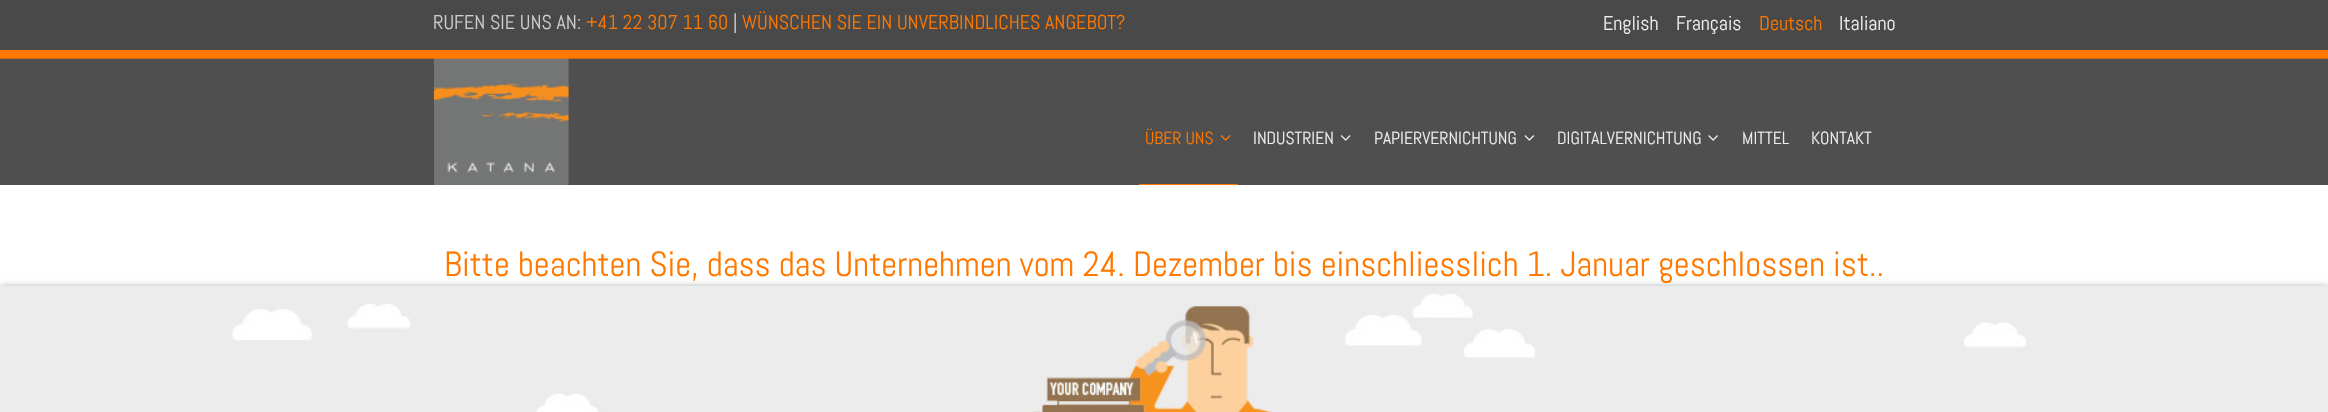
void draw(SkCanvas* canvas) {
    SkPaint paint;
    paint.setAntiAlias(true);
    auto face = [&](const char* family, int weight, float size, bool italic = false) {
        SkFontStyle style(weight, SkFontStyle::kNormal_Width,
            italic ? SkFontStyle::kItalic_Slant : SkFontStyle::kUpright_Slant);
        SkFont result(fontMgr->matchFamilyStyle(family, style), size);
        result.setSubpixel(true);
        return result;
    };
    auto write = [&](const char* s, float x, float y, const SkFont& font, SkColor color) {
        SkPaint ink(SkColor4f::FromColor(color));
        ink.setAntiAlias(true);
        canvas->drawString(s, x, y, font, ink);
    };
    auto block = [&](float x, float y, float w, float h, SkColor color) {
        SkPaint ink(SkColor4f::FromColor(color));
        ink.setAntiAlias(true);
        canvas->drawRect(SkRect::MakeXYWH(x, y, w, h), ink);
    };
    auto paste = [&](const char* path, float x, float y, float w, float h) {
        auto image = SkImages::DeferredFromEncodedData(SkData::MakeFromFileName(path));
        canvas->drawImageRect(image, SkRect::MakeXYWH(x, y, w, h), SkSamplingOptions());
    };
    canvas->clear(SK_ColorWHITE);
    block(0, 0, 2328, 50, SkColorSetRGB(73, 73, 73));
    auto kFont1 = face("Abel", 400, 20);
    write("RUFEN SIE UNS AN:", 433, 29, kFont1, SkColorSetRGB(205, 205, 205));
    write("+41 22 307 11 60", 586, 29, kFont1, SkColorSetRGB(255, 120, 0));
    write("|", 733, 29, kFont1, SkColorSetRGB(205, 205, 205));
    write("WÜNSCHEN SIE EIN UNVERBINDLICHES ANGEBOT?", 742, 29, kFont1, SkColorSetRGB(255, 120, 0));
    write("English", 1603, 30, kFont1, SkColorSetRGB(237, 237, 237));
    write("Français", 1676, 30, kFont1, SkColorSetRGB(237, 237, 237));
    write("Deutsch", 1759, 30, kFont1, SkColorSetRGB(255, 120, 0));
    write("Italiano", 1839, 30, kFont1, SkColorSetRGB(237, 237, 237));
    paste("pic1.png", 0, 50, 2328, 135);
    paste("pic2.png", 433, 58, 136, 127);
    block(1139, 184, 99, 1, SkColorSetRGB(255, 120, 0));
    auto kFont2 = face("Abel", 400, 17.5f);
    write("ÜBER UNS", 1145, 144, kFont2, SkColorSetRGB(255, 120, 0));
    paste("pic3.png", 1220, 135, 11, 6);
    write("INDUSTRIEN", 1253, 144, kFont2, SkColorSetRGB(237, 237, 237));
    paste("pic4.png", 1340, 135, 11, 6);
    write("PAPIERVERNICHTUNG", 1374, 144, kFont2, SkColorSetRGB(237, 237, 237));
    paste("pic5.png", 1524, 135, 11, 6);
    write("DIGITALVERNICHTUNG", 1557, 144, kFont2, SkColorSetRGB(237, 237, 237));
    paste("pic6.png", 1708, 135, 10, 6);
    write("MITTEL", 1742, 144, kFont2, SkColorSetRGB(237, 237, 237));
    write("KONTAKT", 1811, 144, kFont2, SkColorSetRGB(237, 237, 237));
    paint.setColor(SkColorSetARGB(128, 0, 0, 0));
    paint.setMaskFilter(SkMaskFilter::MakeBlur(kNormal_SkBlurStyle, 4));
    canvas->drawRect(SkRect::MakeXYWH(1, 288, 2327, 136), paint);
    paint.setMaskFilter(nullptr);
    auto kFont3 = face("Abel", 400, 35);
    write("Bitte beachten Sie, dass das Unternehmen vom 24. Dezember bis einschliesslich 1. Januar geschlossen ist..", 444, 276, kFont3, SkColorSetRGB(255, 120, 0));
    block(0, 286, 2328, 126, SkColorSetRGB(236, 236, 236));
    paste("pic7.png", 232, 294, 1795, 118);
}
